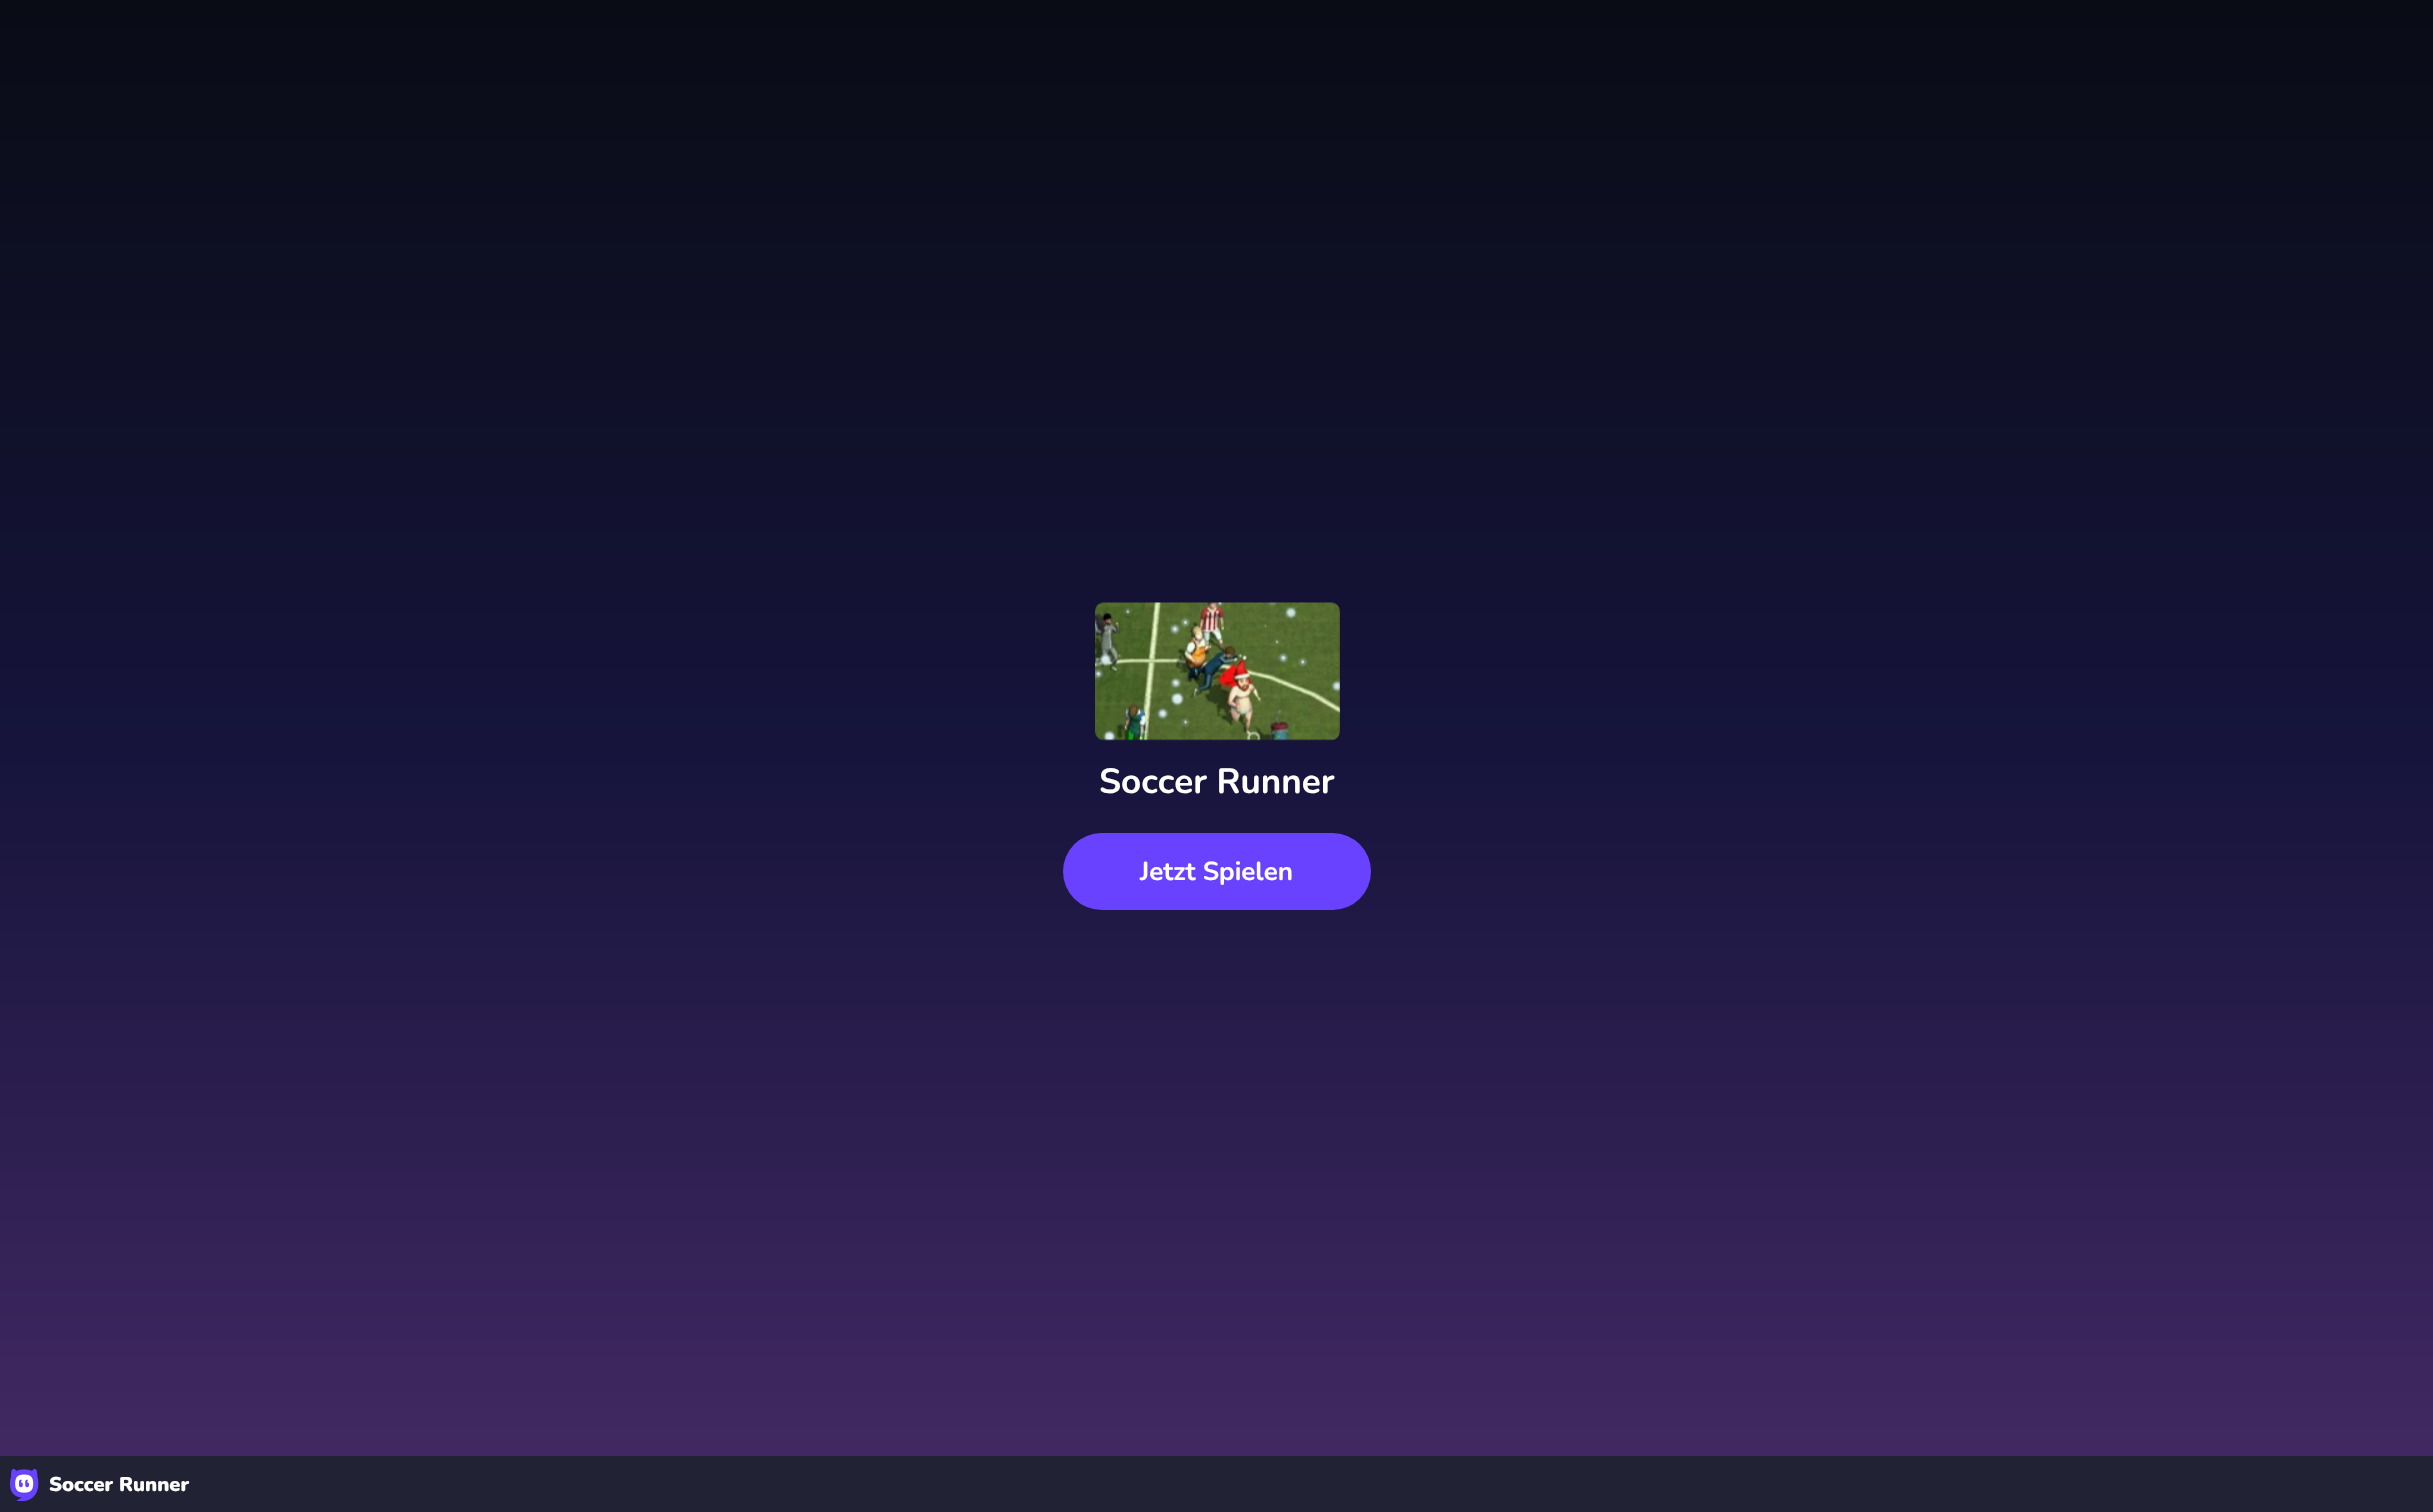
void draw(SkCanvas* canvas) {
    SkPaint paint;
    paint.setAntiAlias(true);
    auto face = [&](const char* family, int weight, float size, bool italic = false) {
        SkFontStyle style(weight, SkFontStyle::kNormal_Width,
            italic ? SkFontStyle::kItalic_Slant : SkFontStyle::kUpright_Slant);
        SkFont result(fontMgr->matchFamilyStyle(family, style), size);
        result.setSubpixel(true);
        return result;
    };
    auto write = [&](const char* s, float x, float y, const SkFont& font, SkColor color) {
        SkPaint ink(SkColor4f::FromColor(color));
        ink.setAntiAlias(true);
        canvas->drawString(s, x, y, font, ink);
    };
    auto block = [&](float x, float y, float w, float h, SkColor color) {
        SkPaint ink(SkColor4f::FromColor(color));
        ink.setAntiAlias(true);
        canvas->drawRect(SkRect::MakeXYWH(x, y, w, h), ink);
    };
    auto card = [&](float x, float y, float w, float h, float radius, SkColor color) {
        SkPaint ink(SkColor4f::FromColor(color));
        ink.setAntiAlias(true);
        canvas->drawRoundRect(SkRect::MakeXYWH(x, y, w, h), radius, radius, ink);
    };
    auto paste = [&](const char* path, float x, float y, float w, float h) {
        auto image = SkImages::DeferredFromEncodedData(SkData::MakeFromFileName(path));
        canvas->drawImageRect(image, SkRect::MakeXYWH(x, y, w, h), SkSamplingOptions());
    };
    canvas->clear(SK_ColorWHITE);
    {
        const SkColor colors[] = {SkColorSetRGB(9, 12, 21), SkColorSetRGB(22, 20, 60), SkColorSetRGB(69, 42, 101)};
        const float stops[] = {0, 0.5f, 1};
        const SkPoint ends[] = {{1217, 0}, {1217, 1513}};
        paint.setShader(SkGradientShader::MakeLinear(ends, colors, stops, 3, SkTileMode::kClamp));
        paint.setAlpha(255);
    }
    canvas->drawRect(SkRect::MakeXYWH(0, 0, 2433, 1456), paint);
    paste("pic1.png", 1095, 602, 245, 139);
    auto kFont1 = face("Nunito", 700, 35);
    write("Soccer Runner", 1099, 793, kFont1, SK_ColorWHITE);
    card(1063, 833, 308, 77, 38.5f, SkColorSetRGB(104, 66, 255));
    auto kFont2 = face("Nunito", 700, 26);
    write("Jetzt Spielen", 1140, 880, kFont2, SK_ColorWHITE);
    block(0, 1456, 2433, 56, SkColorSetRGB(33, 34, 51));
    paste("pic2.png", 10, 1469, 29, 32);
    auto kFont3 = face("Nunito", 900, 20);
    write("Soccer Runner", 49, 1491, kFont3, SK_ColorWHITE);
}
